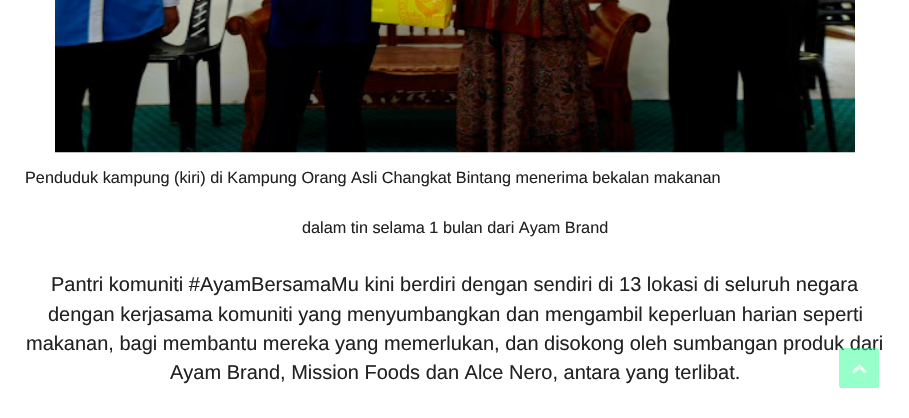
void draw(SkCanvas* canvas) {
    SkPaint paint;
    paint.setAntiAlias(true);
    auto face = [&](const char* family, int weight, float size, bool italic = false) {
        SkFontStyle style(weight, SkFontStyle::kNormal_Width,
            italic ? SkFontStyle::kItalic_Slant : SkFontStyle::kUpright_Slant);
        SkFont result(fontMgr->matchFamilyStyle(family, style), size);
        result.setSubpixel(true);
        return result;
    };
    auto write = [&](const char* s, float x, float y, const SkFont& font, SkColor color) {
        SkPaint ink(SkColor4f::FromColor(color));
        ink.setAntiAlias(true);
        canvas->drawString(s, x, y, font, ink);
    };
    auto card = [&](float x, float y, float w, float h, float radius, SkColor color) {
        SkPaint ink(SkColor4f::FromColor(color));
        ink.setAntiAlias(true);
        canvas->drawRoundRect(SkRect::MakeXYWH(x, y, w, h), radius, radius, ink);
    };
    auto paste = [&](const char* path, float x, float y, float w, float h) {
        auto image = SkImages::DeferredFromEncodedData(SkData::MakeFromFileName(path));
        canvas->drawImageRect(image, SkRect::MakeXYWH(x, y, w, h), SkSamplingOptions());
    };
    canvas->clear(SK_ColorWHITE);
    paste("pic1.png", 55, 0, 800, 153);
    auto kFont1 = face("Liberation Sans", 400, 16.25f);
    write("Penduduk kampung (kiri) di Kampung Orang Asli Changkat Bintang menerima bekalan makanan", 25, 183, kFont1, SkColorSetRGB(34, 34, 34));
    write("dalam tin selama 1 bulan dari Ayam Brand", 302, 233, kFont1, SkColorSetRGB(34, 34, 34));
    auto kFont2 = face("Liberation Sans", 400, 20);
    write("Pantri komuniti #AyamBersamaMu kini berdiri dengan sendiri di 13 lokasi di seluruh negara", 51, 291, kFont2, SkColorSetRGB(34, 34, 34));
    write("dengan kerjasama komuniti yang menyumbangkan dan mengambil keperluan harian seperti", 48, 321, kFont2, SkColorSetRGB(34, 34, 34));
    write("makanan, bagi membantu mereka yang memerlukan, dan disokong oleh sumbangan produk dari", 26, 350, kFont2, SkColorSetRGB(34, 34, 34));
    write("Ayam Brand, Mission Foods dan Alce Nero, antara yang terlibat.", 170, 379, kFont2, SkColorSetRGB(34, 34, 34));
    card(839, 348, 40, 40, 2.5f, SkColorSetARGB(128, 48, 255, 147));
    paste("pic2.png", 852, 364, 15, 10);
}
